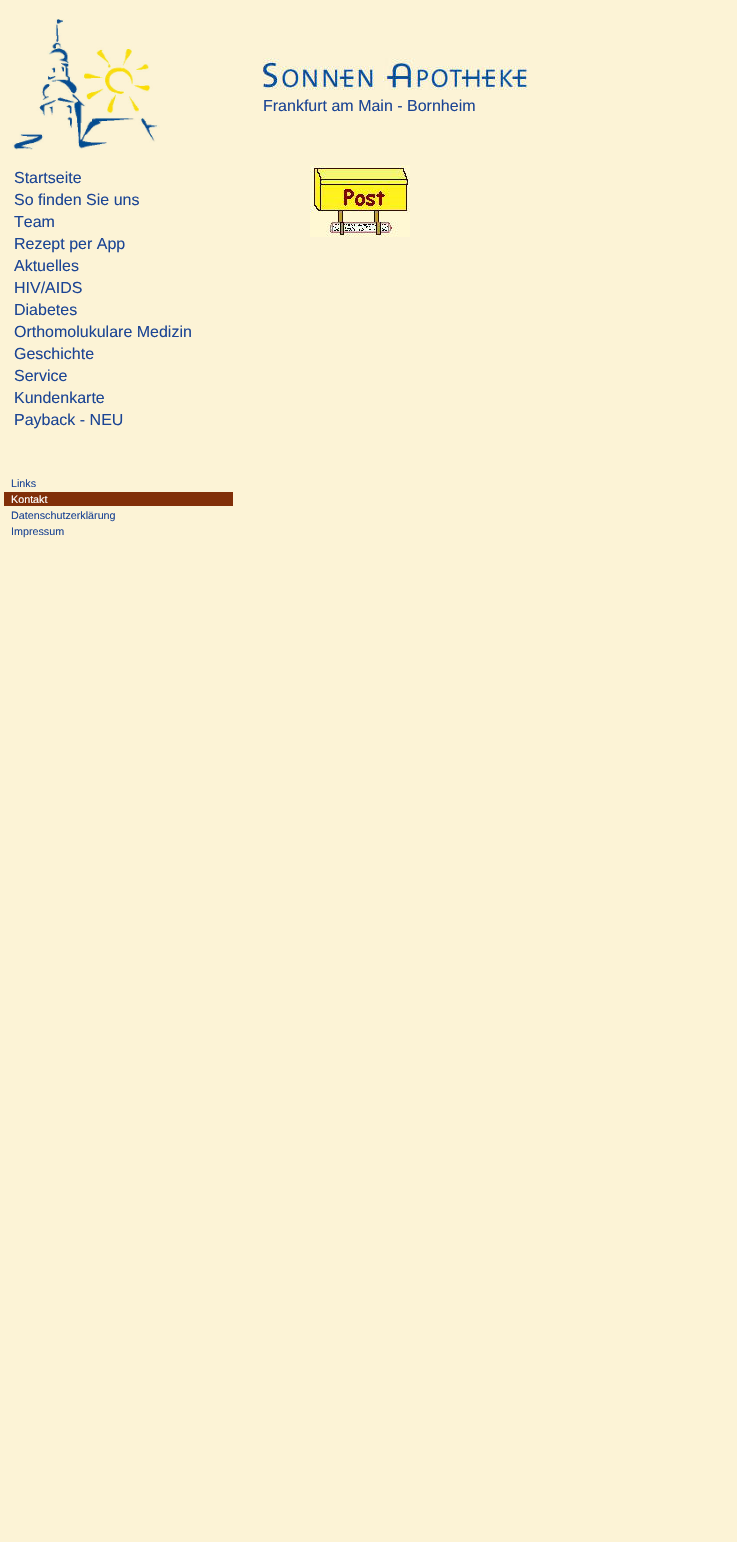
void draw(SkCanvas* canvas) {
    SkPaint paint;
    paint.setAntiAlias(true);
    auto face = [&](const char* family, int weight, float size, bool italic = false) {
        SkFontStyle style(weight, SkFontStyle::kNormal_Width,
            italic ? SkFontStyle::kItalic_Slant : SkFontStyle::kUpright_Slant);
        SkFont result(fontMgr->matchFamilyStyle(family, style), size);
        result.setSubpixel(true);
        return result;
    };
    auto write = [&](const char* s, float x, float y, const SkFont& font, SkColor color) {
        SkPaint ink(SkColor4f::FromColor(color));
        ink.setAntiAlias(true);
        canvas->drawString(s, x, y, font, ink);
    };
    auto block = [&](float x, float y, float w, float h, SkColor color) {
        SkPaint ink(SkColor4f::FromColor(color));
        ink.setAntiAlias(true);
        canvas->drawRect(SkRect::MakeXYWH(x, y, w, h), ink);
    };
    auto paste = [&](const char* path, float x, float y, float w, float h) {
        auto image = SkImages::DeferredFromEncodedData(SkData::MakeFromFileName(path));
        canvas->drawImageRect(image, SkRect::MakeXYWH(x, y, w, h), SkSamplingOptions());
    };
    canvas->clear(SkColorSetRGB(252, 243, 214));
    paste("pic1.png", 263, 58, 266, 32);
    auto kFont1 = face("Liberation Sans", 400, 16);
    write("Frankfurt am Main - Bornheim", 263, 111, kFont1, SkColorSetRGB(28, 69, 148));
    paste("pic2.png", 12, 19, 148, 131);
    write("Startseite", 14, 183, kFont1, SkColorSetRGB(28, 69, 148));
    write("So finden Sie uns", 14, 205, kFont1, SkColorSetRGB(28, 69, 148));
    write("Team", 14, 227, kFont1, SkColorSetRGB(28, 69, 148));
    write("Rezept per App", 14, 249, kFont1, SkColorSetRGB(28, 69, 148));
    write("Aktuelles", 14, 271, kFont1, SkColorSetRGB(28, 69, 148));
    write("HIV/AIDS", 14, 293, kFont1, SkColorSetRGB(28, 69, 148));
    write("Diabetes", 14, 315, kFont1, SkColorSetRGB(28, 69, 148));
    write("Orthomolukulare Medizin", 14, 337, kFont1, SkColorSetRGB(28, 69, 148));
    write("Geschichte", 14, 359, kFont1, SkColorSetRGB(28, 69, 148));
    write("Service", 14, 381, kFont1, SkColorSetRGB(28, 69, 148));
    write("Kundenkarte", 14, 403, kFont1, SkColorSetRGB(28, 69, 148));
    write("Payback - NEU", 14, 425, kFont1, SkColorSetRGB(28, 69, 148));
    auto kFont2 = face("Liberation Sans", 400, 10.75f);
    write("Links", 11, 487, kFont2, SkColorSetRGB(28, 69, 148));
    block(4, 492, 229, 14, SkColorSetRGB(129, 47, 9));
    write("Kontakt", 11, 503, kFont2, SK_ColorWHITE);
    write("Datenschutzerklärung", 11, 519, kFont2, SkColorSetRGB(28, 69, 148));
    write("Impressum", 11, 535, kFont2, SkColorSetRGB(28, 69, 148));
    paste("pic3.png", 310, 165, 100, 72);
}
